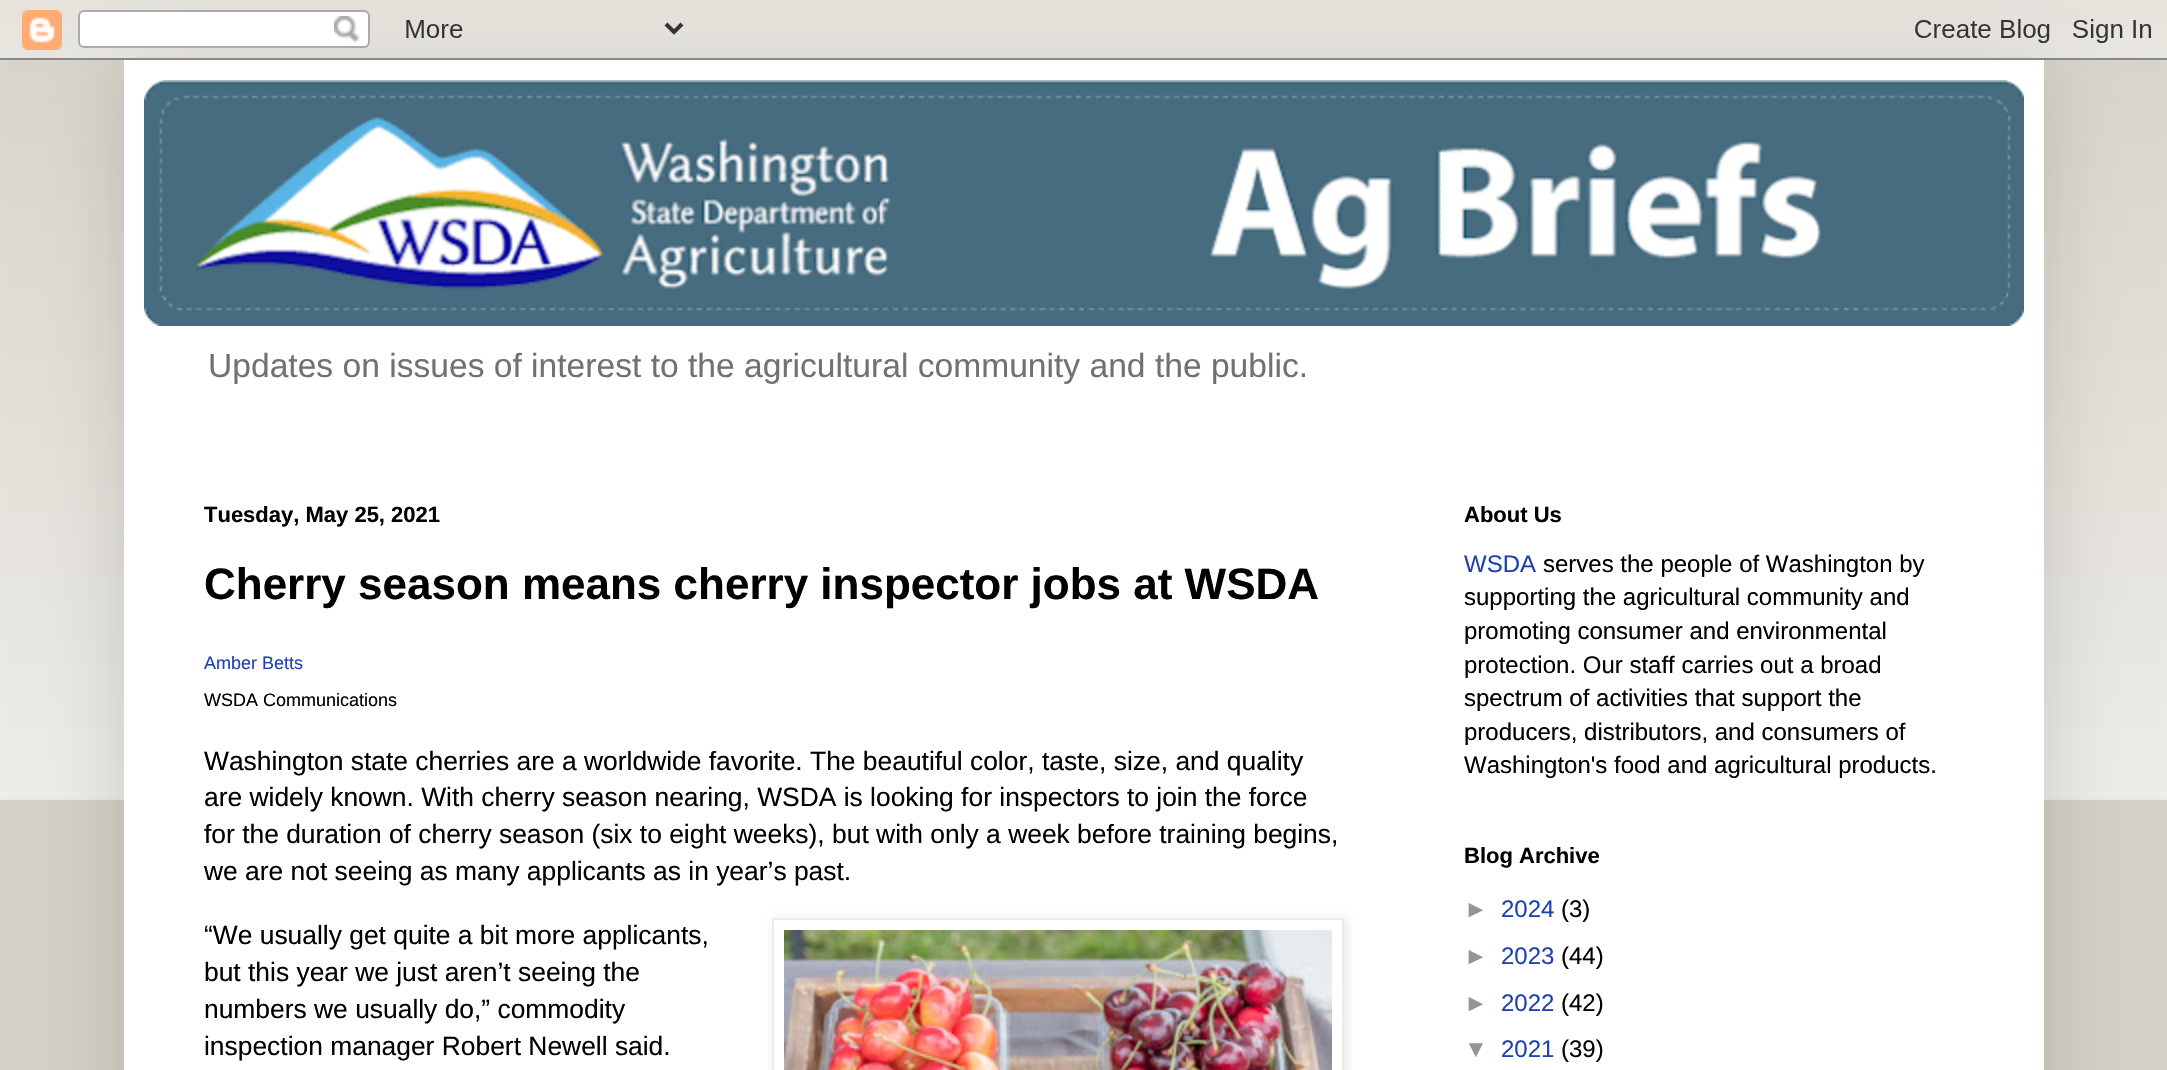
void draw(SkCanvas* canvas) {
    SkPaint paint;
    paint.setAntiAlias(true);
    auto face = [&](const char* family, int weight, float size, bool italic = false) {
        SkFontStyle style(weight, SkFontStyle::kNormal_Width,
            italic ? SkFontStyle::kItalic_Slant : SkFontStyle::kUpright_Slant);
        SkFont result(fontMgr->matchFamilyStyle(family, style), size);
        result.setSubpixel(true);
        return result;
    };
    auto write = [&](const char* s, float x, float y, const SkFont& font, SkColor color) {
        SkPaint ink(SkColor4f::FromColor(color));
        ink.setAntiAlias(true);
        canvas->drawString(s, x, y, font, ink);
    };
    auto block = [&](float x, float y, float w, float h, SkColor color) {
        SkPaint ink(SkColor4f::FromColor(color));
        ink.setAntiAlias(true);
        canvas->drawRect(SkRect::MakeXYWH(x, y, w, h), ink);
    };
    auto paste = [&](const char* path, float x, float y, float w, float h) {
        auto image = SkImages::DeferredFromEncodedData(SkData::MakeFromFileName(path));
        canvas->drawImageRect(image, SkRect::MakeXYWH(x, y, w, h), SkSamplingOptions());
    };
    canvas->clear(SkColorSetRGB(213, 209, 198));
    paste("pic2.png", 0, 26, 2167, 774);
    paint.setColor(SkColorSetARGB(38, 0, 0, 0));
    paint.setMaskFilter(SkMaskFilter::MakeBlur(kNormal_SkBlurStyle, 40));
    canvas->drawRect(SkRect::MakeXYWH(124, 60, 1920, 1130), paint);
    paint.setMaskFilter(nullptr);
    paste("pic1.png", 0, 0, 2167, 60);
    block(124, 60, 1920, 1010, SK_ColorWHITE);
    paste("pic3.png", 144, 80, 1880, 246);
    auto kFont1 = face("Liberation Sans", 400, 33.6f);
    write("Updates on issues of interest to the agricultural community and the public.", 208, 377, kFont1, SkColorSetRGB(113, 113, 113));
    auto kFont2 = face("Liberation Sans", 700, 22);
    write("Tuesday, May 25, 2021", 204, 522, kFont2, SK_ColorBLACK);
    auto kFont3 = face("Liberation Sans", 700, 44);
    write("Cherry season means cherry inspector jobs at WSDA", 204, 599, kFont3, SK_ColorBLACK);
    auto kFont4 = face("Liberation Sans", 400, 18);
    write("Amber Betts", 204, 669, kFont4, SkColorSetRGB(31, 65, 175));
    write("WSDA Communications", 204, 706, kFont4, SK_ColorBLACK);
    auto kFont5 = face("Liberation Sans", 400, 26.4f);
    write("Washington state cherries are a worldwide favorite. The beautiful color, taste, size, and quality", 204, 770, kFont5, SK_ColorBLACK);
    write("are widely known. With cherry season nearing, WSDA is looking for inspectors to join the force", 204, 806, kFont5, SK_ColorBLACK);
    write("for the duration of cherry season (six to eight weeks), but with only a week before training begins,", 204, 843, kFont5, SK_ColorBLACK);
    write("we are not seeing as many applicants as in year’s past.", 204, 880, kFont5, SK_ColorBLACK);
    write("“We usually get quite a bit more applicants,", 204, 944, kFont5, SK_ColorBLACK);
    write("but this year we just aren’t seeing the", 204, 981, kFont5, SK_ColorBLACK);
    write("numbers we usually do,” commodity", 204, 1018, kFont5, SK_ColorBLACK);
    write("inspection manager Robert Newell said.", 204, 1055, kFont5, SK_ColorBLACK);
    canvas->save();
    canvas->clipPath(SkPathBuilder(SkPathFillType::kEvenOdd).moveTo(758, 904).lineTo(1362, 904).lineTo(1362, 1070).lineTo(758, 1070).close().moveTo(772, 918).lineTo(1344, 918).lineTo(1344, 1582).lineTo(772, 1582).close().detach(), true);
    paint.setColor(SkColorSetARGB(26, 0, 0, 0));
    paint.setMaskFilter(SkMaskFilter::MakeBlur(kNormal_SkBlurStyle, 5));
    canvas->drawRect(SkRect::MakeXYWH(774, 920, 572, 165), paint);
    paint.setMaskFilter(nullptr);
    canvas->restore();
    paint.setStyle(SkPaint::kStroke_Style);
    paint.setStrokeWidth(2);
    paint.setColor(SkColorSetRGB(236, 236, 236));
    canvas->drawRect(SkRect::MakeXYWH(773, 919, 570, 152), paint);
    paste("pic4.png", 784, 930, 548, 140);
    write("About Us", 1464, 522, kFont2, SK_ColorBLACK);
    auto kFont6 = face("Liberation Sans", 400, 24);
    write("WSDA", 1464, 572, kFont6, SkColorSetRGB(31, 65, 175));
    write("serves the people of Washington by", 1543, 572, kFont6, SK_ColorBLACK);
    write("supporting the agricultural community and", 1464, 605, kFont6, SK_ColorBLACK);
    write("promoting consumer and environmental", 1464, 639, kFont6, SK_ColorBLACK);
    write("protection. Our staff carries out a broad", 1464, 673, kFont6, SK_ColorBLACK);
    write("spectrum of activities that support the", 1464, 706, kFont6, SK_ColorBLACK);
    write("producers, distributors, and consumers of", 1464, 740, kFont6, SK_ColorBLACK);
    write("Washington's food and agricultural products.", 1464, 773, kFont6, SK_ColorBLACK);
    write("Blog Archive", 1464, 863, kFont2, SK_ColorBLACK);
    write("►", 1464, 917, kFont6, SkColorSetRGB(149, 149, 149));
    write("2024", 1501, 917, kFont6, SkColorSetRGB(31, 65, 175));
    write("(3)", 1561, 917, kFont6, SK_ColorBLACK);
    write("►", 1464, 964, kFont6, SkColorSetRGB(149, 149, 149));
    write("2023", 1501, 964, kFont6, SkColorSetRGB(31, 65, 175));
    write("(44)", 1561, 964, kFont6, SK_ColorBLACK);
    write("►", 1464, 1011, kFont6, SkColorSetRGB(149, 149, 149));
    write("2022", 1501, 1011, kFont6, SkColorSetRGB(31, 65, 175));
    write("(42)", 1561, 1011, kFont6, SK_ColorBLACK);
    write("▼", 1464, 1057, kFont6, SkColorSetRGB(149, 149, 149));
    write("2021", 1501, 1057, kFont6, SkColorSetRGB(31, 65, 175));
    write("(39)", 1561, 1057, kFont6, SK_ColorBLACK);
}
